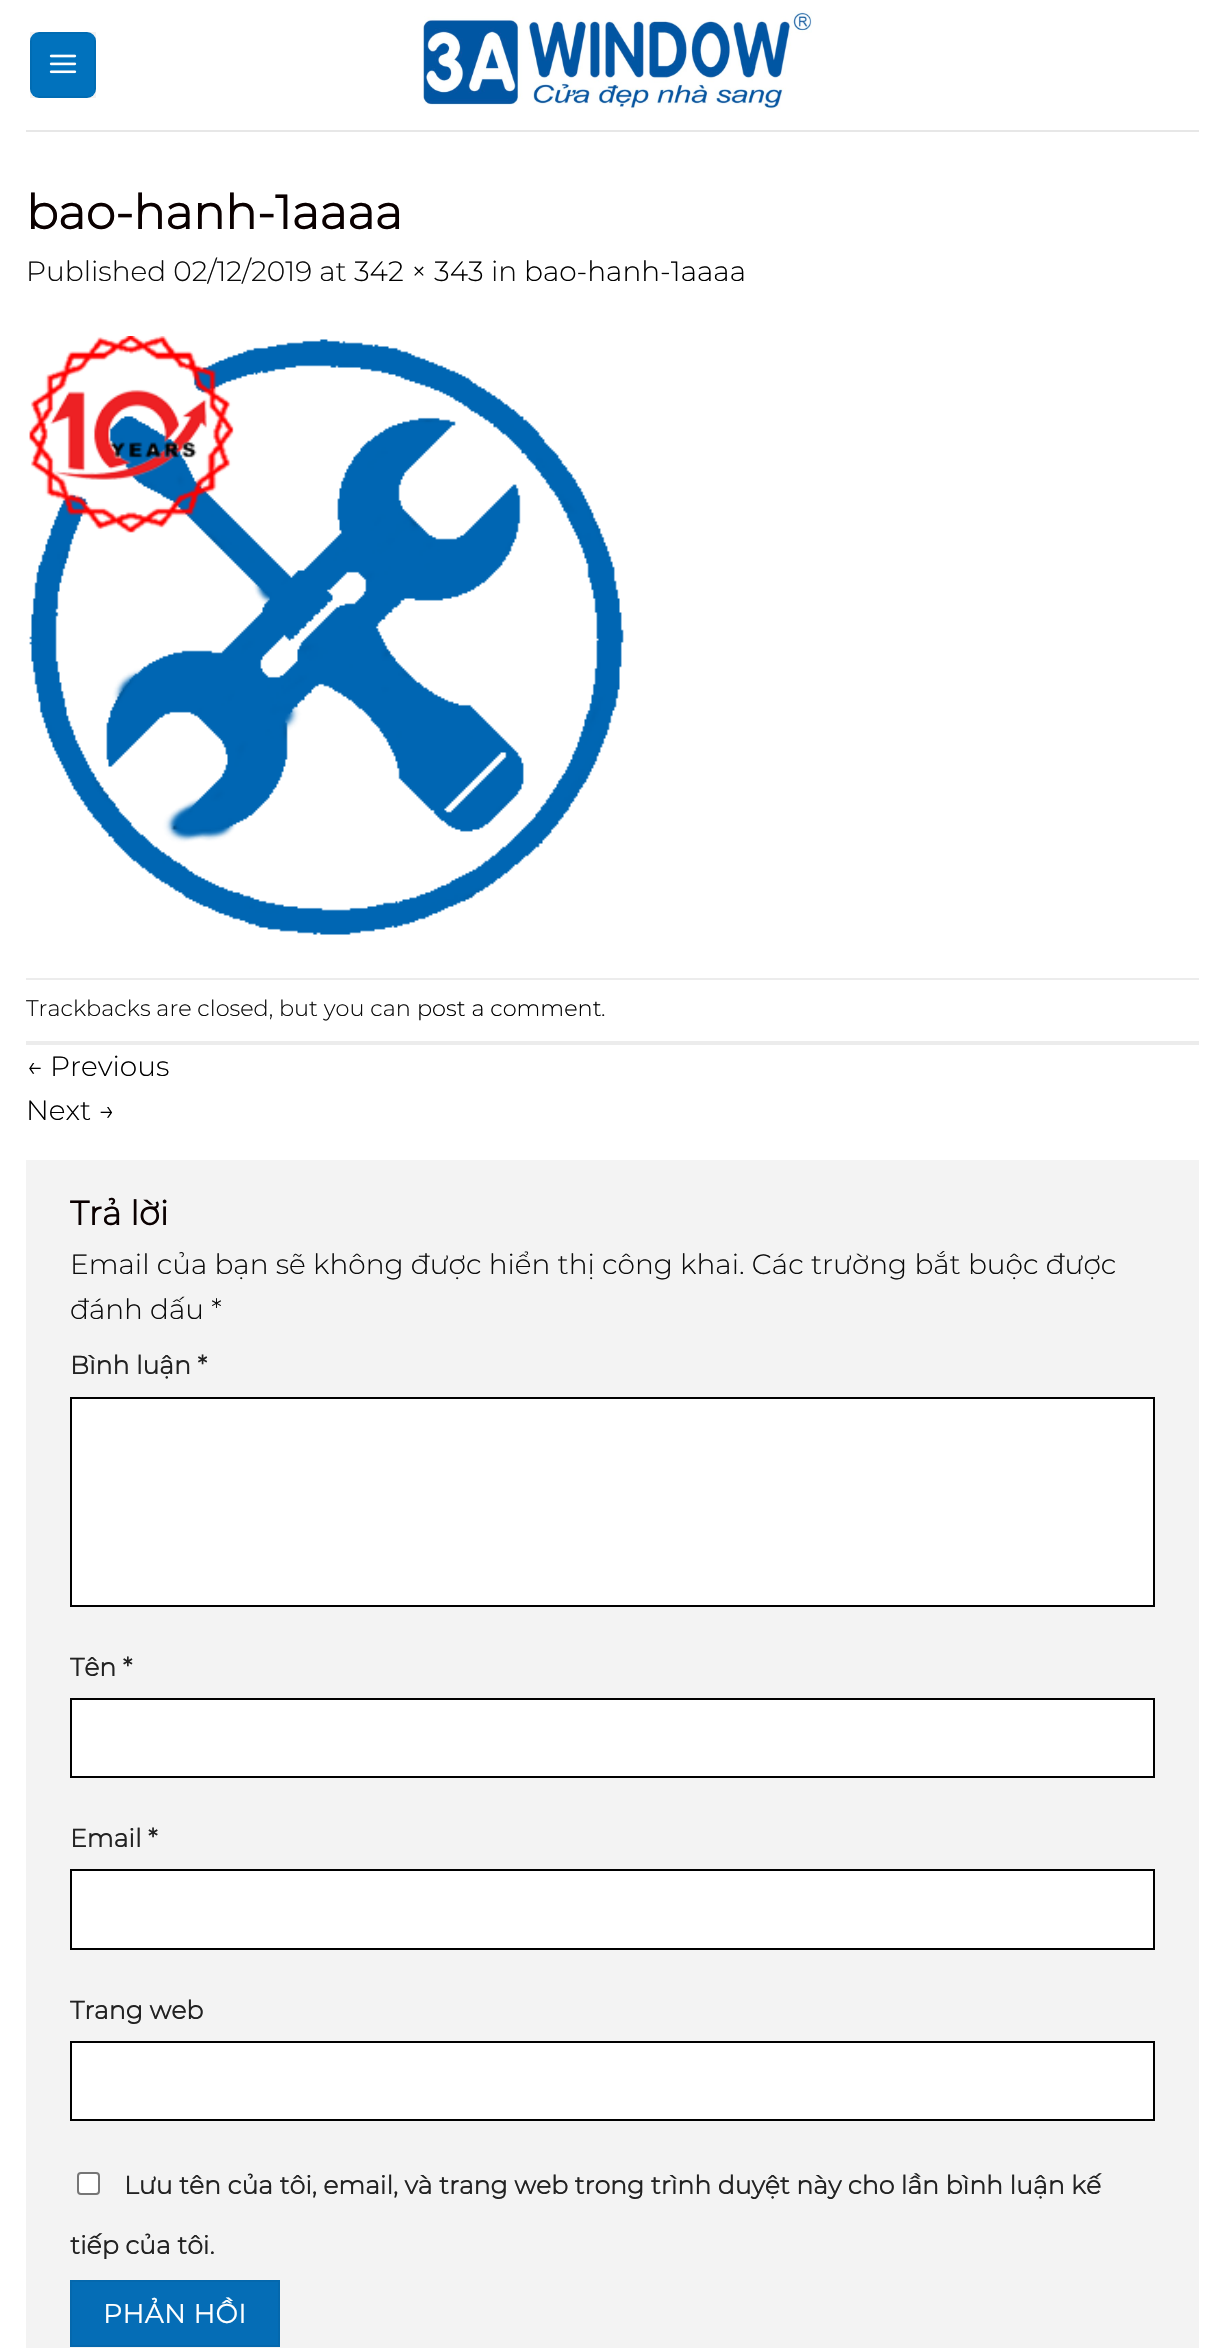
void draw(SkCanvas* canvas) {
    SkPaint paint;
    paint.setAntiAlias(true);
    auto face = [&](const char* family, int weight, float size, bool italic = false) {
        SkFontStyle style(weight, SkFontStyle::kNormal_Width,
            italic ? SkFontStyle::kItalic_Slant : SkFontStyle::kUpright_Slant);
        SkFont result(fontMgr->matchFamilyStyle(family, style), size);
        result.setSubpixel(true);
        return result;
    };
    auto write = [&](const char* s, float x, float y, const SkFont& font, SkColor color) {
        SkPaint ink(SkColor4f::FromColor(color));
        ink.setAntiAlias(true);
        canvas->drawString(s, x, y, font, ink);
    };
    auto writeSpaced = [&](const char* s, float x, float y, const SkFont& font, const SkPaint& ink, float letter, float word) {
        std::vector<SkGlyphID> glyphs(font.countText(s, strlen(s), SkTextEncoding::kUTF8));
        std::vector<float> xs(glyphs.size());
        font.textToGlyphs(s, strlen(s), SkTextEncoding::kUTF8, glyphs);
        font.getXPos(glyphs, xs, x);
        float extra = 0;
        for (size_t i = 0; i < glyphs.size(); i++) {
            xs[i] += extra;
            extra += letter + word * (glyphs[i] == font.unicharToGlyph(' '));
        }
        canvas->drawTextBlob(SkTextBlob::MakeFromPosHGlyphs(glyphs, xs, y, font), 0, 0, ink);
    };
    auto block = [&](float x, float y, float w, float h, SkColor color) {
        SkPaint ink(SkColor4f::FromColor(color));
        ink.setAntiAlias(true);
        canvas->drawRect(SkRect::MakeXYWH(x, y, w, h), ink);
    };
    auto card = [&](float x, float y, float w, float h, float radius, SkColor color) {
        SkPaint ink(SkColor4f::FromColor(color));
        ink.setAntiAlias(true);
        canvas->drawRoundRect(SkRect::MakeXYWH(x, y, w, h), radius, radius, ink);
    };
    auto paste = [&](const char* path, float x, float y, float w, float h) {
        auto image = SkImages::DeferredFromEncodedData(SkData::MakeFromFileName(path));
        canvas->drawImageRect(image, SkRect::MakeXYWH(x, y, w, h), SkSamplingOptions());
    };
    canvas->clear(SK_ColorWHITE);
    card(30, 32, 66, 66, 9, SkColorSetRGB(1, 114, 189));
    paint.setStyle(SkPaint::kStroke_Style);
    paint.setStrokeWidth(2);
    paint.setColor(SkColorSetARGB(13, 0, 0, 0));
    canvas->drawRect(SkRect::MakeXYWH(31, 33, 64, 64), paint);
    paste("pic1.png", 49, 54, 28, 20);
    paste("pic2.png", 423, 11, 389, 99);
    block(26, 130, 1173, 2, SkColorSetRGB(231, 231, 231));
    auto kFont1 = face("Montserrat", 700, 47.5f);
    write("bao-hanh-1aaaa", 26, 229, kFont1, SkColorSetRGB(10, 0, 0));
    auto kFont2 = face("Montserrat", 300, 28);
    write("Published 02/12/2019 at", 26, 281, kFont2, SkColorSetRGB(12, 12, 12));
    write("342 × 343", 354, 281, kFont2, SK_ColorBLACK);
    write("in", 491, 281, kFont2, SkColorSetRGB(12, 12, 12));
    write("bao-hanh-1aaaa", 524, 281, kFont2, SK_ColorBLACK);
    paste("pic3.png", 29, 336, 595, 599);
    block(26, 978, 1173, 2, SkColorSetRGB(236, 236, 236));
    block(26, 1041, 1173, 4, SkColorSetRGB(236, 236, 236));
    auto kFont3 = face("Montserrat", 300, 22.4f);
    write("Trackbacks are closed, but you can", 26, 1016, kFont3, SkColorSetRGB(12, 12, 12));
    write("post a comment", 417, 1016, kFont3, SK_ColorBLACK);
    write(".", 601, 1016, kFont3, SkColorSetRGB(12, 12, 12));
    write("← Previous", 26, 1076, kFont2, SK_ColorBLACK);
    write("Next →", 26, 1120, kFont2, SK_ColorBLACK);
    block(26, 1160, 1173, 1188, SkColorSetRGB(243, 243, 243));
    auto kFont4 = face("Montserrat", 700, 33.5f);
    write("Trả lời", 70, 1225, kFont4, SkColorSetRGB(10, 0, 0));
    write("Email của bạn sẽ không được hiển thị công khai. Các trường bắt buộc được", 70, 1274, kFont2, SkColorSetRGB(12, 12, 12));
    write("đánh dấu *", 70, 1319, kFont2, SkColorSetRGB(12, 12, 12));
    auto kFont5 = face("Montserrat", 700, 25.2f);
    write("Bình luận *", 70, 1374, kFont5, SkColorSetRGB(34, 34, 34));
    paint.setStyle(SkPaint::kFill_Style);
    paint.setColor(SK_ColorWHITE);
    canvas->drawRect(SkRect::MakeXYWH(71, 1398, 1083, 208), paint);
    paint.setStyle(SkPaint::kStroke_Style);
    paint.setColor(SK_ColorBLACK);
    canvas->drawRect(SkRect::MakeXYWH(71, 1398, 1083, 208), paint);
    write("Tên *", 70, 1676, kFont5, SkColorSetRGB(34, 34, 34));
    paint.setStyle(SkPaint::kFill_Style);
    paint.setColor(SK_ColorWHITE);
    canvas->drawRect(SkRect::MakeXYWH(71, 1699, 1083, 78), paint);
    paint.setStyle(SkPaint::kStroke_Style);
    paint.setColor(SK_ColorBLACK);
    canvas->drawRect(SkRect::MakeXYWH(71, 1699, 1083, 78), paint);
    write("Email *", 70, 1847, kFont5, SkColorSetRGB(34, 34, 34));
    paint.setStyle(SkPaint::kFill_Style);
    paint.setColor(SK_ColorWHITE);
    canvas->drawRect(SkRect::MakeXYWH(71, 1870, 1083, 79), paint);
    paint.setStyle(SkPaint::kStroke_Style);
    paint.setColor(SK_ColorBLACK);
    canvas->drawRect(SkRect::MakeXYWH(71, 1870, 1083, 79), paint);
    write("Trang web", 70, 2019, kFont5, SkColorSetRGB(34, 34, 34));
    paint.setStyle(SkPaint::kFill_Style);
    paint.setColor(SK_ColorWHITE);
    canvas->drawRect(SkRect::MakeXYWH(71, 2042, 1083, 78), paint);
    paint.setStyle(SkPaint::kStroke_Style);
    paint.setColor(SK_ColorBLACK);
    canvas->drawRect(SkRect::MakeXYWH(71, 2042, 1083, 78), paint);
    paint.setStyle(SkPaint::kFill_Style);
    paint.setColor(SK_ColorWHITE);
    canvas->drawRoundRect(SkRect::MakeXYWH(78, 2173, 21, 21), 3, 3, paint);
    paint.setStyle(SkPaint::kStroke_Style);
    paint.setColor(SkColorSetRGB(118, 118, 118));
    canvas->drawRoundRect(SkRect::MakeXYWH(78, 2173, 21, 21), 3, 3, paint);
    write("Lưu tên của tôi, email, và trang web trong trình duyệt này cho lần bình luận kế", 124, 2194, kFont5, SkColorSetRGB(34, 34, 34));
    write("tiếp của tôi.", 70, 2254, kFont5, SkColorSetRGB(34, 34, 34));
    paint.setStyle(SkPaint::kFill_Style);
    paint.setColor(SkColorSetRGB(5, 109, 182));
    canvas->drawRect(SkRect::MakeXYWH(71, 2281, 208, 65), paint);
    paint.setStyle(SkPaint::kStroke_Style);
    paint.setColor(SkColorSetRGB(5, 104, 173));
    canvas->drawRect(SkRect::MakeXYWH(71, 2281, 208, 65), paint);
    auto kFont6 = face("Montserrat", 700, 26.25f);
    paint.setStyle(SkPaint::kFill_Style);
    paint.setColor(SK_ColorWHITE);
    writeSpaced("PHẢN HỒI", 103, 2323, kFont6, paint, 0.75f, 0);
}
